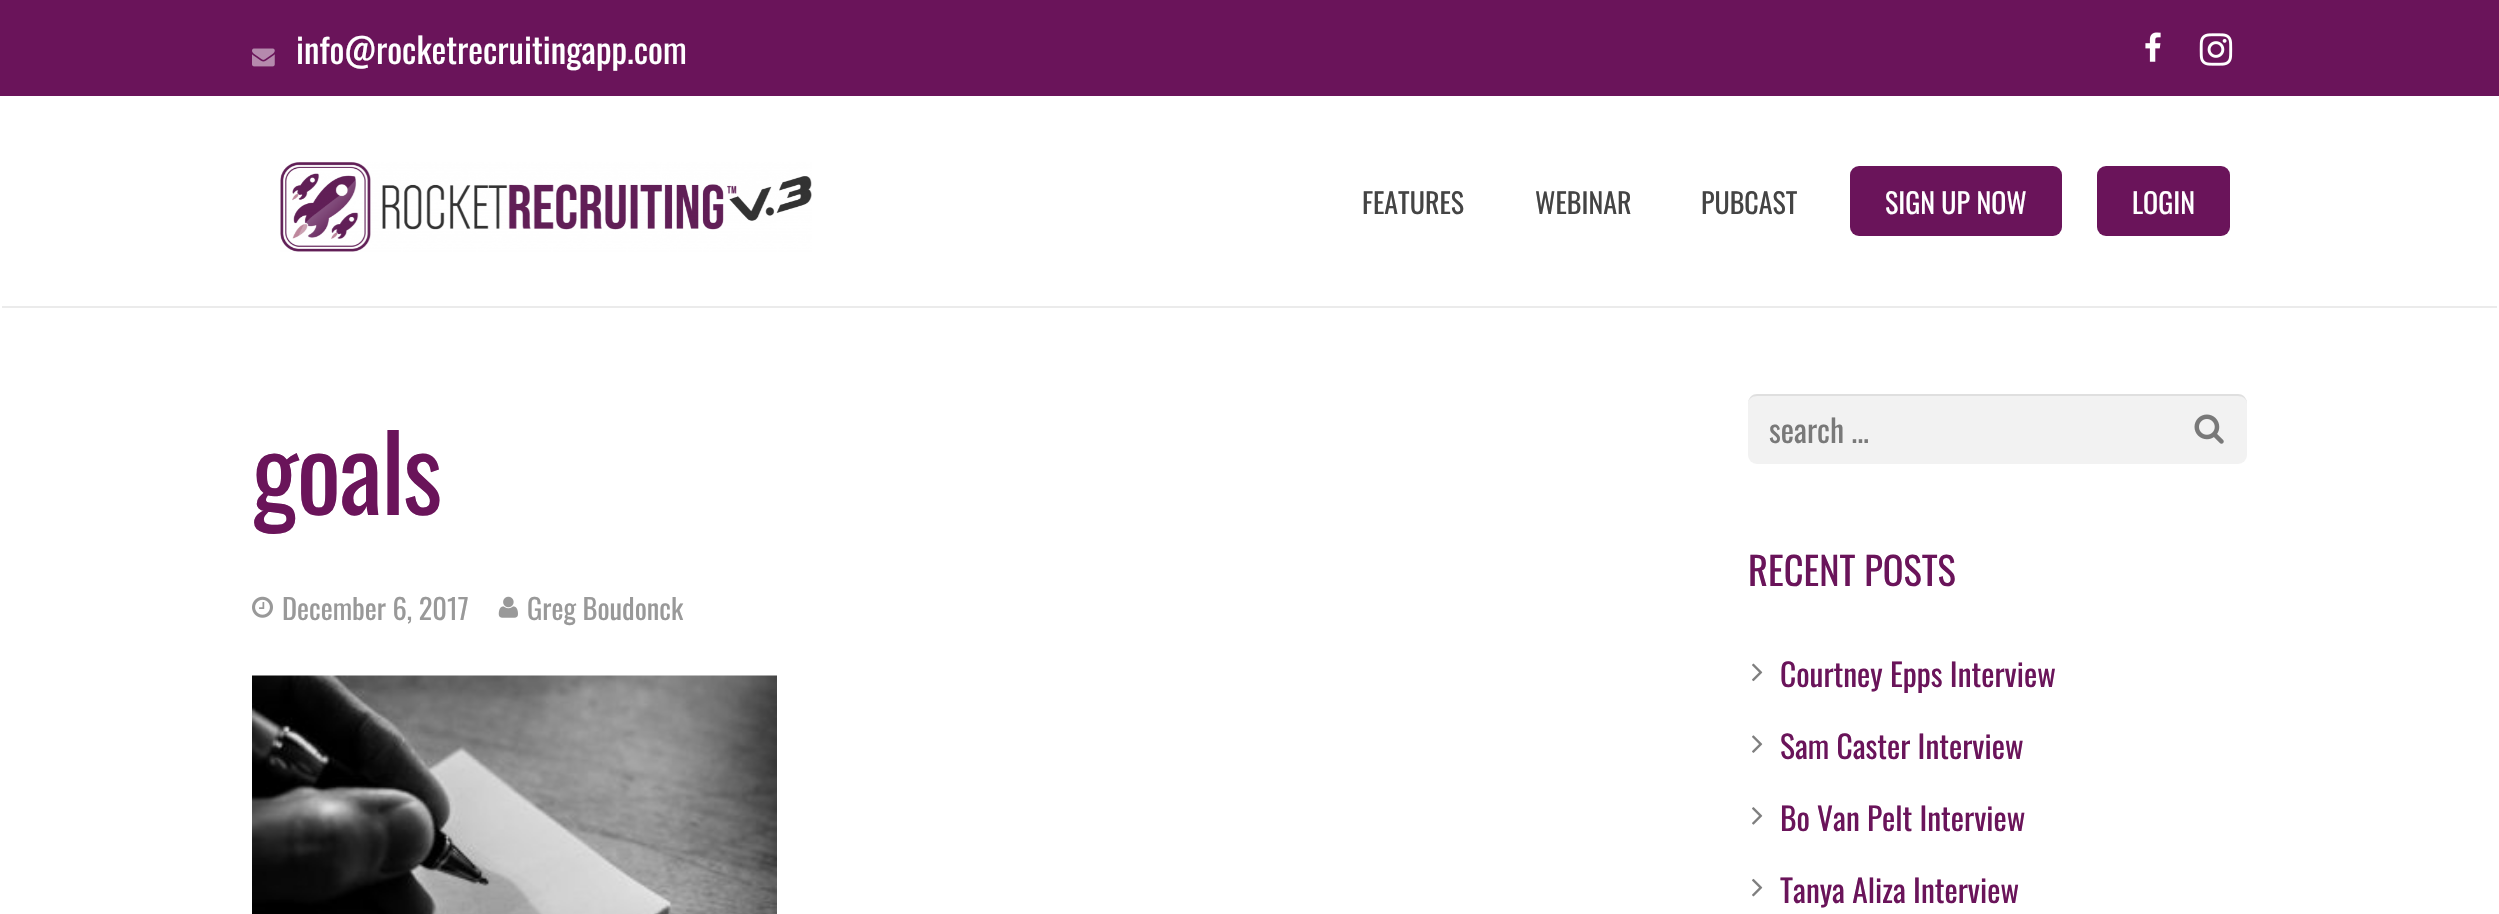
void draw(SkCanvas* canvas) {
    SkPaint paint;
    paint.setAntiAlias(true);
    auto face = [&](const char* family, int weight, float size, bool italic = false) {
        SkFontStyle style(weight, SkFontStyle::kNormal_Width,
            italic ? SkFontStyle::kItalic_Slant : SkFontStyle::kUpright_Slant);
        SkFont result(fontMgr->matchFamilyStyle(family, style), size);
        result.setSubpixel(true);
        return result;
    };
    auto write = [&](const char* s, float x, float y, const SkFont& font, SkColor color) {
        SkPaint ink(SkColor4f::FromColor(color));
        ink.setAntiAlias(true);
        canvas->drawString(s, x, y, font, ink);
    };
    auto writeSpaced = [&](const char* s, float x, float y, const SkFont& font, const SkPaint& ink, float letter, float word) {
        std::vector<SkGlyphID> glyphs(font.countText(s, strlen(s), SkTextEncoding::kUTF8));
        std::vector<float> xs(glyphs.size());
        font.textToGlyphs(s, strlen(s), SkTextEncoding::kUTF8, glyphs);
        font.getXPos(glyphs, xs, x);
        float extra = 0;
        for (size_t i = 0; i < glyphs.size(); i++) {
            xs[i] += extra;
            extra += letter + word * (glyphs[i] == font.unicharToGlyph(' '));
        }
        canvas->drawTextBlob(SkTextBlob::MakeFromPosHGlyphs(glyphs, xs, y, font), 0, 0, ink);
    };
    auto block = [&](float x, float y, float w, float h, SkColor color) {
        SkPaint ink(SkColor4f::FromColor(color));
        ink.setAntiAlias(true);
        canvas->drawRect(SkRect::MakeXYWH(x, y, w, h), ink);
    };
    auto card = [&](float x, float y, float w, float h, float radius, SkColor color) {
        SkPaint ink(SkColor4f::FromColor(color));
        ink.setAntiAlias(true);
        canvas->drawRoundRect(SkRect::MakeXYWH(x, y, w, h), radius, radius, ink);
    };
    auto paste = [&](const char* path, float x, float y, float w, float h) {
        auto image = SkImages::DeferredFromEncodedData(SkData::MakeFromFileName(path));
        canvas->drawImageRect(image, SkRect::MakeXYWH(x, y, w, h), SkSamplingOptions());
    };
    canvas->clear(SK_ColorWHITE);
    block(0, 0, 2499, 96, SkColorSetRGB(106, 20, 90));
    paste("pic1.png", 252, 48, 23, 19);
    auto kFont1 = face("Oswald", 400, 35);
    write("info@rocketrecruitingapp.com", 296, 64, kFont1, SK_ColorWHITE);
    paste("pic2.png", 2145, 32, 16, 30);
    paste("pic3.png", 2199, 33, 34, 33);
    block(2, 306, 2495, 2, SkColorSetRGB(235, 235, 235));
    paste("pic4.png", 280, 162, 532, 90);
    auto kFont2 = face("Oswald", 400, 28);
    write("FEATURES", 1362, 214, kFont2, SkColorSetRGB(68, 68, 68));
    write("WEBINAR", 1535, 214, kFont2, SkColorSetRGB(68, 68, 68));
    write("PUBCAST", 1701, 214, kFont2, SkColorSetRGB(68, 68, 68));
    card(1850, 166, 212, 70, 9, SkColorSetRGB(106, 20, 90));
    write("SIGN UP NOW", 1885, 214, kFont2, SK_ColorWHITE);
    card(2097, 166, 133, 70, 9, SkColorSetRGB(106, 20, 90));
    write("LOGIN", 2132, 214, kFont2, SK_ColorWHITE);
    auto kFont3 = face("Oswald", 400, 105);
    paint.setColor(SkColorSetRGB(106, 20, 90));
    writeSpaced("goals", 252, 515, kFont3, paint, -1.75f, 0);
    paste("pic5.png", 252, 596, 21, 22);
    auto kFont4 = face("Oswald", 400, 28.5f);
    write("December 6, 2017", 282, 620, kFont4, SkColorSetRGB(153, 153, 153));
    paste("pic6.png", 498, 596, 20, 22);
    write("Greg Boudonck", 527, 620, kFont4, SkColorSetRGB(153, 153, 153));
    paste("pic7.png", 252, 675, 525, 239);
    card(1748, 394, 499, 70, 9, SkColorSetRGB(242, 242, 242));
    paint.setColor(SkColorSetARGB(20, 0, 0, 0));
    canvas->drawPath(SkPathBuilder().moveTo(1757, 396).lineTo(2238, 396).cubicTo(2243, 396, 2247, 399, 2247, 404).cubicTo(2247, 399, 2244, 394, 2238, 394).lineTo(1757, 394).cubicTo(1751, 394, 1748, 399, 1748, 404).cubicTo(1748, 399, 1752, 396, 1757, 396).close().detach(), paint);
    auto kFont5 = face("Oswald", 400, 31.5f);
    write("search ...", 1769, 443, kFont5, SkColorSetRGB(121, 121, 121));
    paste("pic8.png", 2194, 414, 30, 30);
    auto kFont6 = face("Oswald", 400, 38.5f);
    write("RECENT POSTS", 1748, 586, kFont6, SkColorSetRGB(106, 20, 90));
    paste("pic9.png", 1752, 663, 11, 19);
    write("Courtney Epps Interview", 1780, 687, kFont5, SkColorSetRGB(106, 20, 90));
    paste("pic10.png", 1752, 735, 11, 18);
    write("Sam Caster Interview", 1780, 759, kFont5, SkColorSetRGB(106, 20, 90));
    paste("pic11.png", 1752, 807, 11, 18);
    write("Bo Van Pelt Interview", 1780, 831, kFont5, SkColorSetRGB(106, 20, 90));
    paste("pic12.png", 1752, 878, 11, 19);
    write("Tanya Aliza Interview", 1780, 903, kFont5, SkColorSetRGB(106, 20, 90));
}
